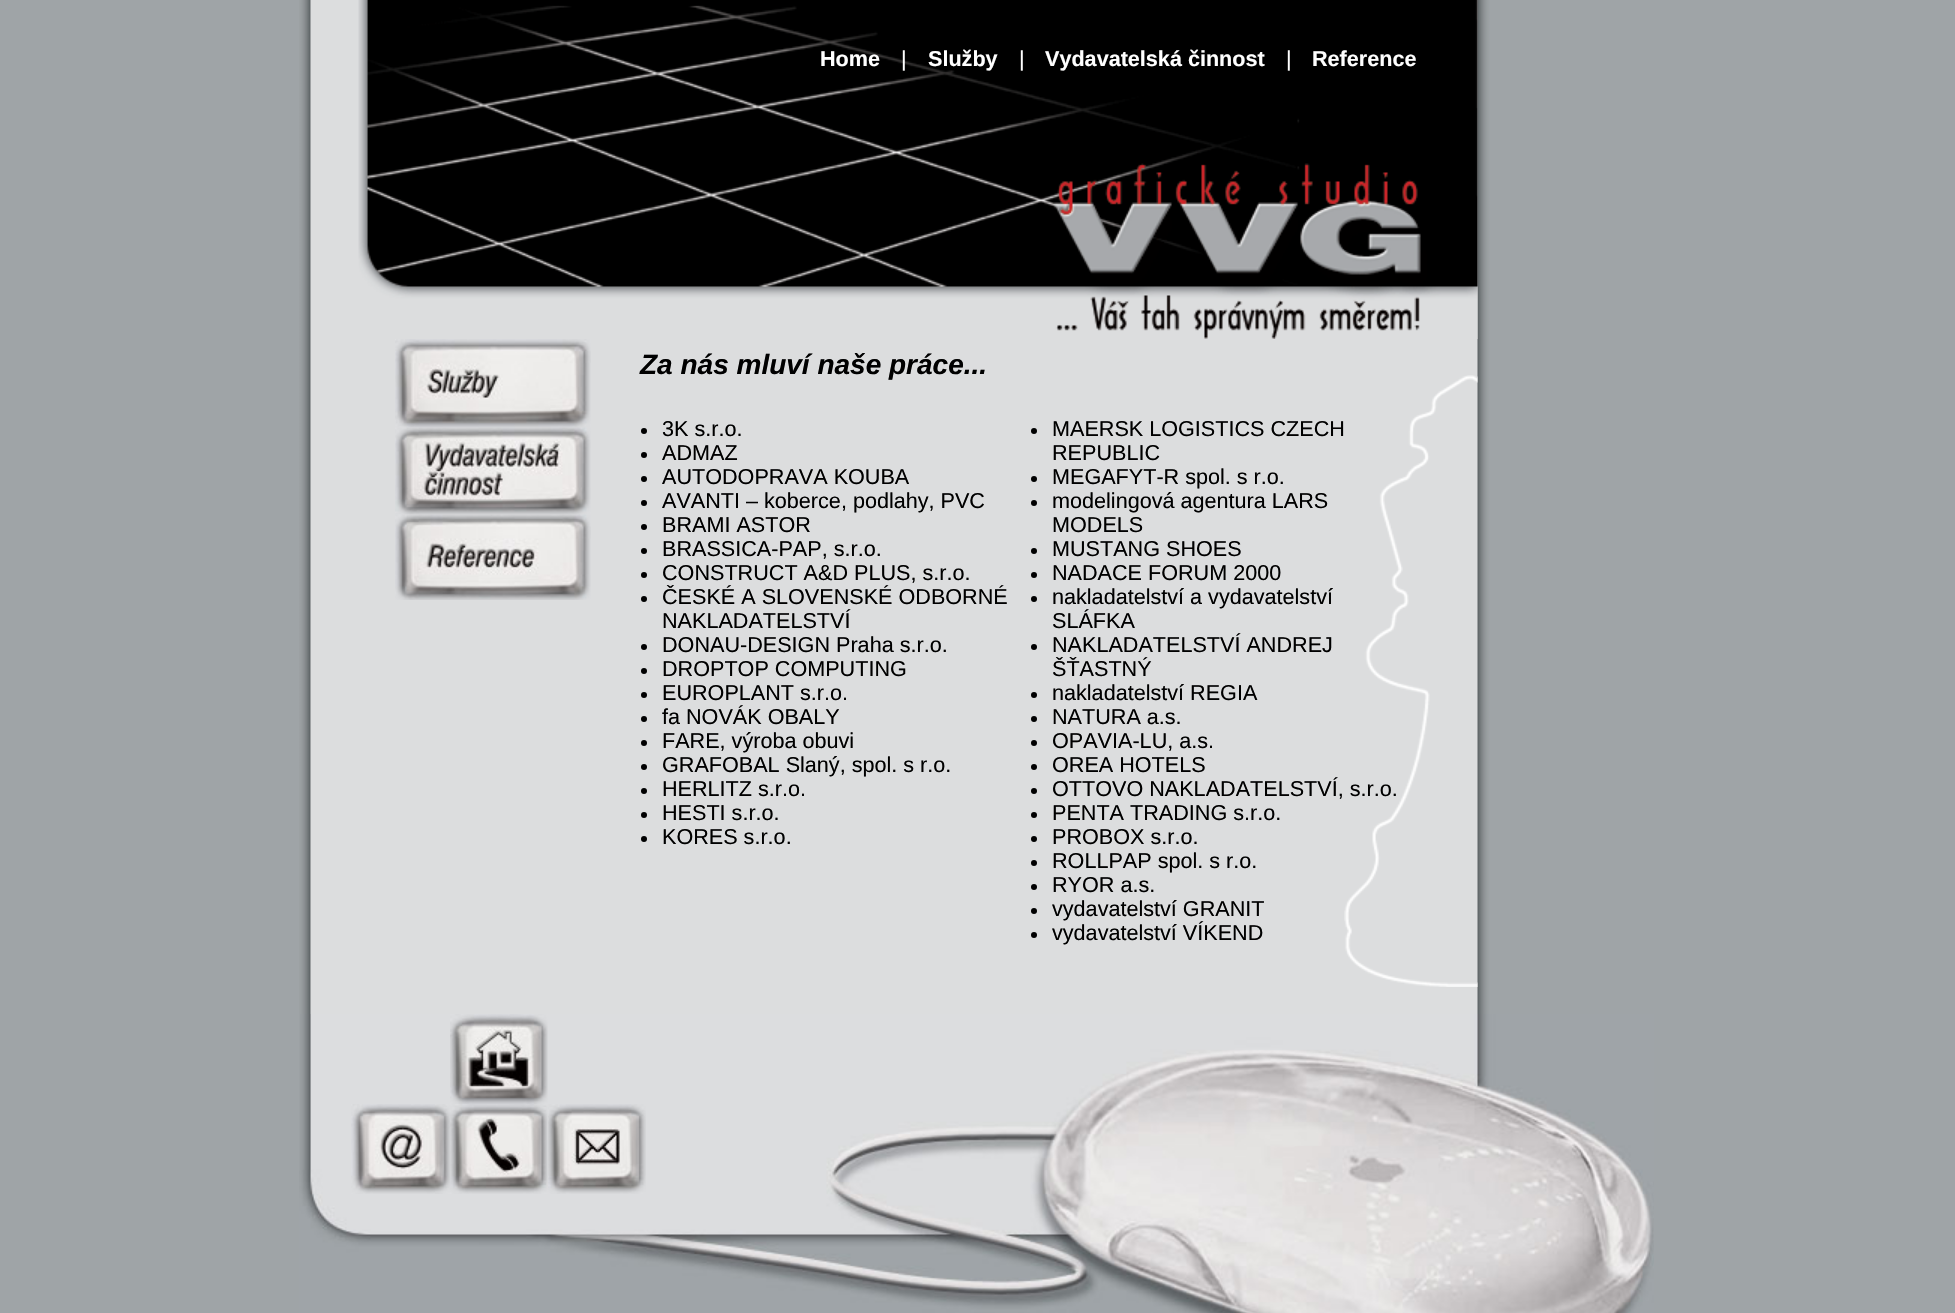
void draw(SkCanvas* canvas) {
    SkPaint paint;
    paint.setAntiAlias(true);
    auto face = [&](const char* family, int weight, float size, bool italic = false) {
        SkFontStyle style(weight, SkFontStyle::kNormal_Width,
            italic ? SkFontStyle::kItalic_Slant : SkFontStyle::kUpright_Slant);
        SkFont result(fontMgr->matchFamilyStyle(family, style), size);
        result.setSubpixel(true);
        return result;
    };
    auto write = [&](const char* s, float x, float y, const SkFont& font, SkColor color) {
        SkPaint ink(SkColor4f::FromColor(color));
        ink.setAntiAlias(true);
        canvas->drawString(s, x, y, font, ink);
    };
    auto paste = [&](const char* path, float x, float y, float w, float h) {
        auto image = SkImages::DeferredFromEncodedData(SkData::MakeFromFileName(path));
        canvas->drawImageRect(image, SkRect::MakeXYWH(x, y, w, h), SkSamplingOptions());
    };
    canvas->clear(SkColorSetRGB(159, 164, 167));
    paste("pic1.png", 299, 0, 1192, 1014);
    paste("pic2.png", 1344, 375, 134, 612);
    paste("pic3.png", 358, 0, 1120, 339);
    auto kFont1 = face("Liberation Sans", 700, 21.6f);
    write("Home", 820, 66, kFont1, SK_ColorWHITE);
    auto kFont2 = face("Liberation Sans", 400, 21.6f);
    write("|", 901, 66, kFont2, SK_ColorWHITE);
    write("Služby", 928, 66, kFont1, SK_ColorWHITE);
    write("|", 1019, 66, kFont2, SK_ColorWHITE);
    write("Vydavatelská činnost", 1045, 66, kFont1, SK_ColorWHITE);
    write("|", 1286, 66, kFont2, SK_ColorWHITE);
    write("Reference", 1312, 66, kFont1, SK_ColorWHITE);
    paste("pic4.png", 395, 339, 196, 89);
    paste("pic5.png", 395, 427, 196, 88);
    paste("pic6.png", 395, 514, 196, 86);
    auto kFont3 = face("Liberation Sans", 700, 28, true);
    write("Za nás mluví naše práce...", 640, 374, kFont3, SK_ColorBLACK);
    paint.setColor(SK_ColorBLACK);
    canvas->drawCircle(644, 431, 3, paint);
    write("3K s.r.o.", 662, 436, kFont2, SK_ColorBLACK);
    canvas->drawCircle(644, 455, 3, paint);
    write("ADMAZ", 662, 460, kFont2, SK_ColorBLACK);
    canvas->drawCircle(644, 479, 3, paint);
    write("AUTODOPRAVA KOUBA", 662, 484, kFont2, SK_ColorBLACK);
    canvas->drawCircle(644, 503, 3, paint);
    write("AVANTI – koberce, podlahy, PVC", 662, 508, kFont2, SK_ColorBLACK);
    canvas->drawCircle(644, 527, 3, paint);
    write("BRAMI ASTOR", 662, 532, kFont2, SK_ColorBLACK);
    canvas->drawCircle(644, 551, 3, paint);
    write("BRASSICA-PAP, s.r.o.", 662, 556, kFont2, SK_ColorBLACK);
    canvas->drawCircle(644, 575, 3, paint);
    write("CONSTRUCT A&D PLUS, s.r.o.", 662, 580, kFont2, SK_ColorBLACK);
    canvas->drawCircle(644, 599, 3, paint);
    write("ČESKÉ A SLOVENSKÉ ODBORNÉ", 662, 604, kFont2, SK_ColorBLACK);
    write("NAKLADATELSTVÍ", 662, 628, kFont2, SK_ColorBLACK);
    canvas->drawCircle(644, 647, 3, paint);
    write("DONAU-DESIGN Praha s.r.o.", 662, 652, kFont2, SK_ColorBLACK);
    canvas->drawCircle(644, 671, 3, paint);
    write("DROPTOP COMPUTING", 662, 676, kFont2, SK_ColorBLACK);
    canvas->drawCircle(644, 695, 3, paint);
    write("EUROPLANT s.r.o.", 662, 700, kFont2, SK_ColorBLACK);
    canvas->drawCircle(644, 719, 3, paint);
    write("fa NOVÁK OBALY", 662, 724, kFont2, SK_ColorBLACK);
    canvas->drawCircle(644, 743, 3, paint);
    write("FARE, výroba obuvi", 662, 748, kFont2, SK_ColorBLACK);
    canvas->drawCircle(644, 767, 3, paint);
    write("GRAFOBAL Slaný, spol. s r.o.", 662, 772, kFont2, SK_ColorBLACK);
    canvas->drawCircle(644, 791, 3, paint);
    write("HERLITZ s.r.o.", 662, 796, kFont2, SK_ColorBLACK);
    canvas->drawCircle(644, 815, 3, paint);
    write("HESTI s.r.o.", 662, 820, kFont2, SK_ColorBLACK);
    canvas->drawCircle(644, 839, 3, paint);
    write("KORES s.r.o.", 662, 844, kFont2, SK_ColorBLACK);
    canvas->drawCircle(1034, 431, 3, paint);
    write("MAERSK LOGISTICS CZECH", 1052, 436, kFont2, SK_ColorBLACK);
    write("REPUBLIC", 1052, 460, kFont2, SK_ColorBLACK);
    canvas->drawCircle(1034, 479, 3, paint);
    write("MEGAFYT-R spol. s r.o.", 1052, 484, kFont2, SK_ColorBLACK);
    canvas->drawCircle(1034, 503, 3, paint);
    write("modelingová agentura LARS", 1052, 508, kFont2, SK_ColorBLACK);
    write("MODELS", 1052, 532, kFont2, SK_ColorBLACK);
    canvas->drawCircle(1034, 551, 3, paint);
    write("MUSTANG SHOES", 1052, 556, kFont2, SK_ColorBLACK);
    canvas->drawCircle(1034, 575, 3, paint);
    write("NADACE FORUM 2000", 1052, 580, kFont2, SK_ColorBLACK);
    canvas->drawCircle(1034, 599, 3, paint);
    write("nakladatelství a vydavatelství", 1052, 604, kFont2, SK_ColorBLACK);
    write("SLÁFKA", 1052, 628, kFont2, SK_ColorBLACK);
    canvas->drawCircle(1034, 647, 3, paint);
    write("NAKLADATELSTVÍ ANDREJ", 1052, 652, kFont2, SK_ColorBLACK);
    write("ŠŤASTNÝ", 1052, 676, kFont2, SK_ColorBLACK);
    canvas->drawCircle(1034, 695, 3, paint);
    write("nakladatelství REGIA", 1052, 700, kFont2, SK_ColorBLACK);
    canvas->drawCircle(1034, 719, 3, paint);
    write("NATURA a.s.", 1052, 724, kFont2, SK_ColorBLACK);
    canvas->drawCircle(1034, 743, 3, paint);
    write("OPAVIA-LU, a.s.", 1052, 748, kFont2, SK_ColorBLACK);
    canvas->drawCircle(1034, 767, 3, paint);
    write("OREA HOTELS", 1052, 772, kFont2, SK_ColorBLACK);
    canvas->drawCircle(1034, 791, 3, paint);
    write("OTTOVO NAKLADATELSTVÍ, s.r.o.", 1052, 796, kFont2, SK_ColorBLACK);
    canvas->drawCircle(1034, 815, 3, paint);
    write("PENTA TRADING s.r.o.", 1052, 820, kFont2, SK_ColorBLACK);
    canvas->drawCircle(1034, 839, 3, paint);
    write("PROBOX s.r.o.", 1052, 844, kFont2, SK_ColorBLACK);
    canvas->drawCircle(1034, 863, 3, paint);
    write("ROLLPAP spol. s r.o.", 1052, 868, kFont2, SK_ColorBLACK);
    canvas->drawCircle(1034, 887, 3, paint);
    write("RYOR a.s.", 1052, 892, kFont2, SK_ColorBLACK);
    canvas->drawCircle(1034, 911, 3, paint);
    write("vydavatelství GRANIT", 1052, 916, kFont2, SK_ColorBLACK);
    canvas->drawCircle(1034, 935, 3, paint);
    write("vydavatelství VÍKEND", 1052, 940, kFont2, SK_ColorBLACK);
    paste("pic7.png", 299, 1014, 1355, 299);
    paste("pic8.png", 450, 1014, 98, 90);
    paste("pic9.png", 351, 1104, 99, 90);
    paste("pic10.png", 450, 1104, 98, 90);
    paste("pic11.png", 548, 1104, 98, 90);
}
